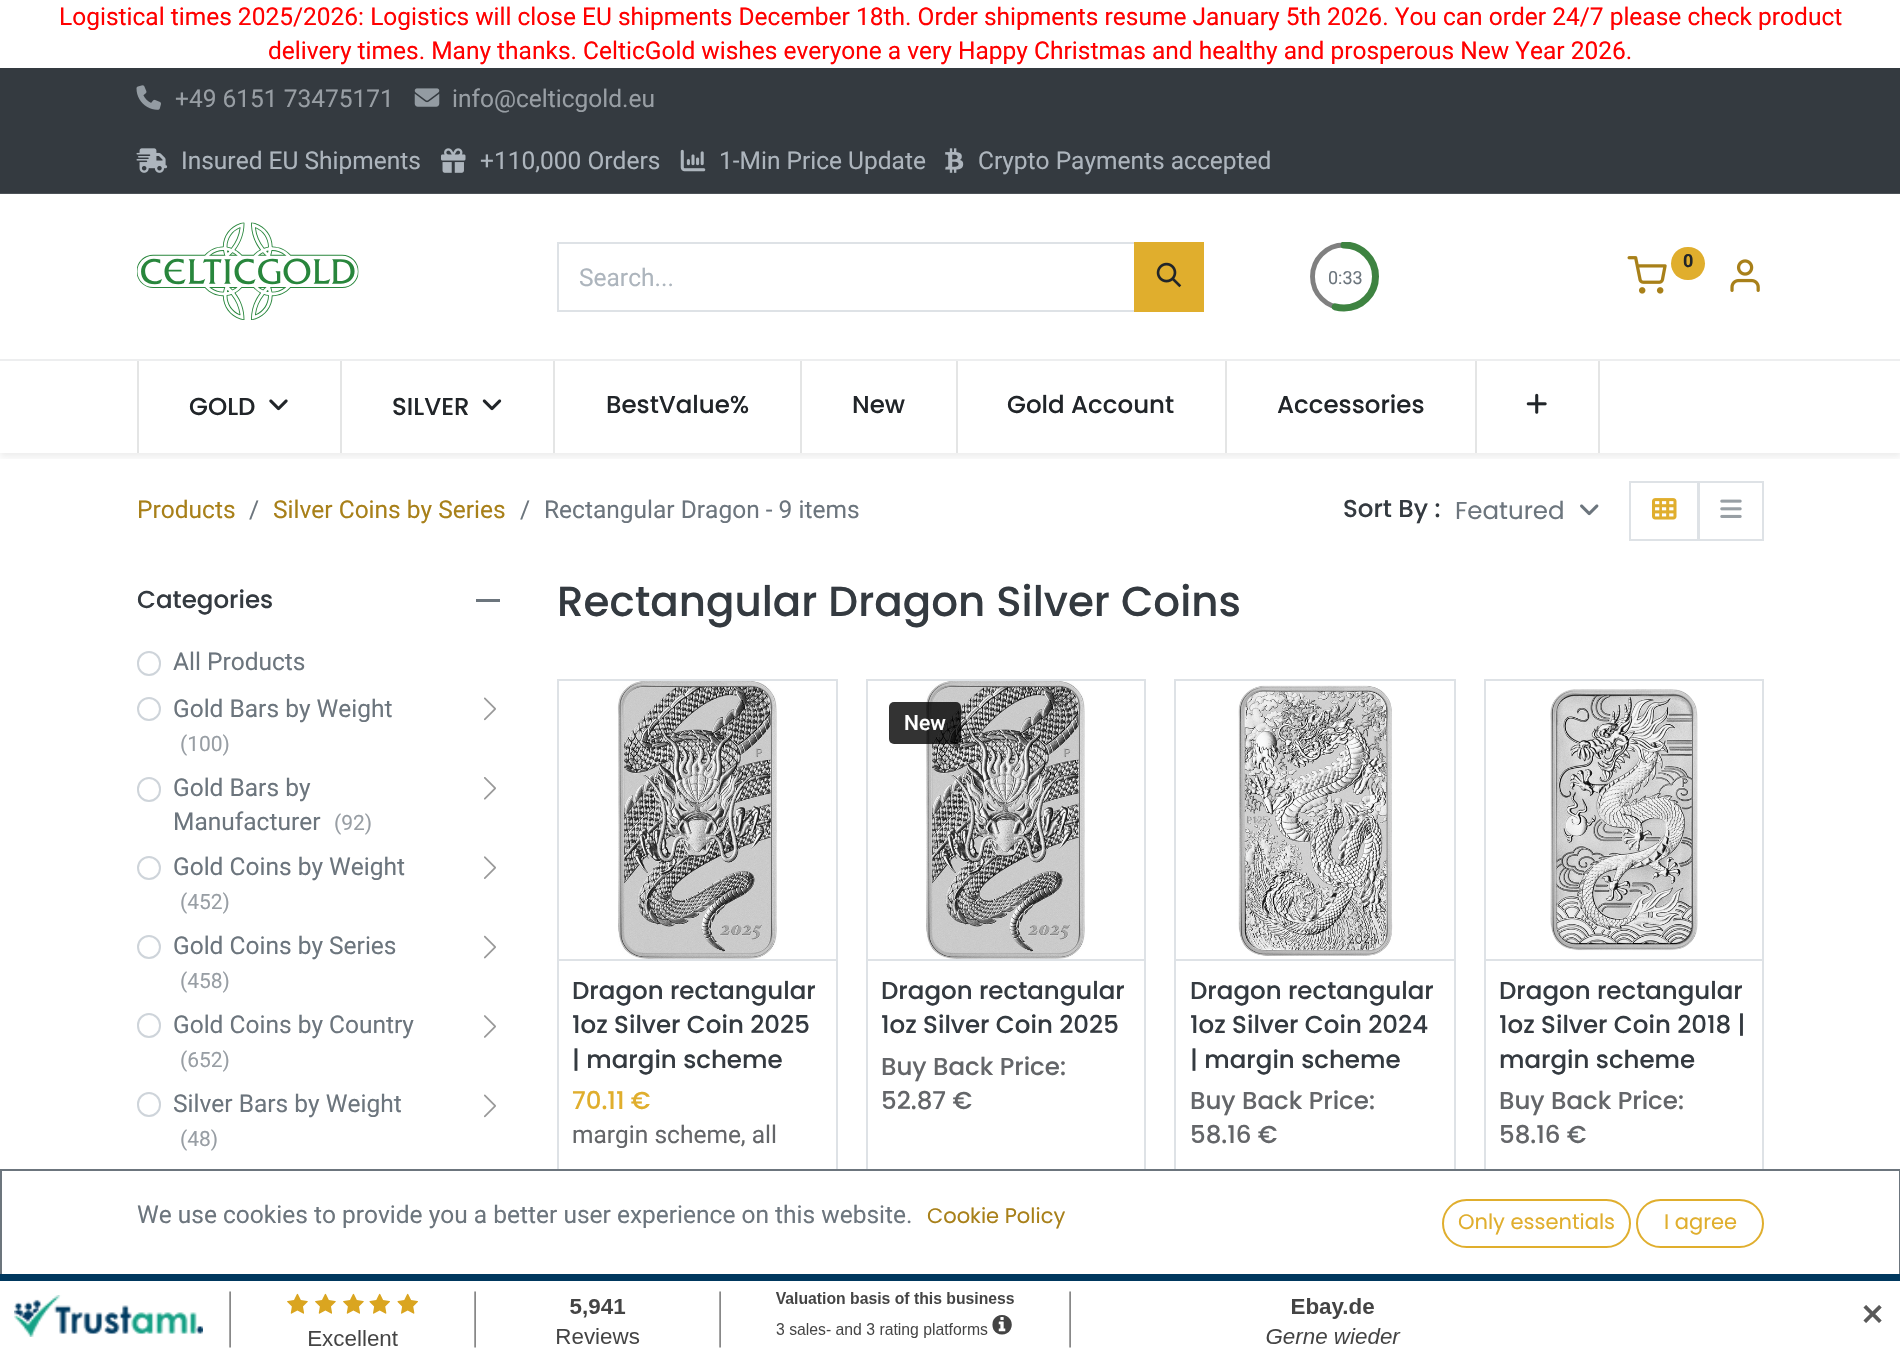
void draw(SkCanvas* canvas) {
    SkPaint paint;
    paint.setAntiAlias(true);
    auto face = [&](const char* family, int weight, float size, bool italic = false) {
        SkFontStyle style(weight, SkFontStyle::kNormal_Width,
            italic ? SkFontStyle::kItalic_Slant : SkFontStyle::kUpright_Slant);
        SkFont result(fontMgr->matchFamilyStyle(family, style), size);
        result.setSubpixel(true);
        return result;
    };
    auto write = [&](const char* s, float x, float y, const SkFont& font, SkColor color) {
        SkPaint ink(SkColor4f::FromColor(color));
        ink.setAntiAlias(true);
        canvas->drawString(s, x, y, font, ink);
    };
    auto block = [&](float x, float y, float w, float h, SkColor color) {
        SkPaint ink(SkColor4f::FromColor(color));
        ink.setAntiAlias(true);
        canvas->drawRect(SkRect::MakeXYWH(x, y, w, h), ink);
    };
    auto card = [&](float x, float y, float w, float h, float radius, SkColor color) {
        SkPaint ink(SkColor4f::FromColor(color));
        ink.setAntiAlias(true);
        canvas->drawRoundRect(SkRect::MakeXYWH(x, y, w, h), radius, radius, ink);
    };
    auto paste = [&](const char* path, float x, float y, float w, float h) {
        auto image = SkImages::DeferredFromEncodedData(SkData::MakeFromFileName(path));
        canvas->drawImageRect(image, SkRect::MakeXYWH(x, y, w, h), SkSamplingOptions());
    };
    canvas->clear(SK_ColorWHITE);
    auto kFont1 = face("Roboto", 400, 24.5f);
    write("Logistical times 2025/2026: Logistics will close EU shipments December 18th. Order shipments resume January 5th 2026. You can order 24/7 please check product", 59, 25, kFont1, SkColorSetRGB(255, 0, 0));
    write("delivery times. Many thanks. CelticGold wishes everyone a very Happy Christmas and healthy and prosperous New Year 2026.", 268, 59, kFont1, SkColorSetRGB(255, 0, 0));
    block(0, 68, 1900, 125, SkColorSetRGB(52, 58, 64));
    block(0, 193, 1900, 1, SkColorSetRGB(76, 82, 87));
    paste("pic1.png", 136, 85, 25, 25);
    write("+49 6151 73475171", 175, 107, kFont1, SkColorSetRGB(152, 158, 164));
    paste("pic2.png", 414, 88, 26, 19);
    write("info@celticgold.eu", 452, 107, kFont1, SkColorSetRGB(152, 158, 164));
    paste("pic3.png", 136, 148, 32, 25);
    write("Insured EU Shipments", 181, 169, kFont1, SkColorSetRGB(173, 181, 189));
    paste("pic4.png", 441, 148, 25, 25);
    write("+110,000 Orders", 480, 169, kFont1, SkColorSetRGB(173, 181, 189));
    paste("pic5.png", 680, 149, 26, 23);
    write("1-Min Price Update", 719, 169, kFont1, SkColorSetRGB(173, 181, 189));
    paste("pic6.png", 945, 148, 19, 25);
    write("Crypto Payments accepted", 978, 169, kFont1, SkColorSetRGB(173, 181, 189));
    block(0, 359, 1900, 2, SkColorSetRGB(237, 238, 239));
    paste("pic7.png", 137, 222, 222, 98);
    paste("pic8.png", 1627, 256, 40, 38);
    card(1671, 247, 34, 33, 16.5f, SkColorSetRGB(224, 174, 45));
    auto kFont2 = face("Roboto", 700, 18);
    write("0", 1683, 267, kFont2, SkColorSetRGB(33, 37, 41));
    paste("pic9.png", 1730, 259, 30, 33);
    paint.setStyle(SkPaint::kStroke_Style);
    paint.setStrokeWidth(2);
    paint.setColor(SkColorSetRGB(222, 226, 230));
    canvas->drawRect(SkRect::MakeXYWH(558, 243, 577, 68), paint);
    write("Search...", 579, 286, kFont1, SkColorSetRGB(173, 181, 189));
    block(1134, 242, 70, 70, SkColorSetRGB(224, 174, 45));
    paste("pic10.png", 1156, 262, 26, 26);
    paint.setStrokeWidth(4.9f);
    paint.setColor(SkColorSetRGB(128, 128, 128));
    canvas->drawPath(SkPathBuilder().moveTo(1344, 245).cubicTo(1326.5f, 245, 1312.5f, 259, 1312.5f, 276.5f).cubicTo(1312.5f, 294, 1326.5f, 308, 1344, 308).cubicTo(1361.5f, 308, 1375.5f, 294, 1375.5f, 276.5f).cubicTo(1375.5f, 259, 1361.5f, 245, 1344, 245).close().detach(), paint);
    canvas->save();
    canvas->clipRect(SkRect::MakeXYWH(1309, 242, 70, 70));
    paint.setStrokeWidth(7);
    paint.setStrokeCap(SkPaint::kRound_Cap);
    paint.setColor(SkColorSetRGB(62, 131, 65));
    paint.setPathEffect(SkDashPathEffect::Make({{107.8f, 198.1f}}, 0));
    canvas->drawPath(SkPathBuilder().moveTo(1344, 245).cubicTo(1361.5f, 245, 1375.5f, 259, 1375.5f, 276.5f).cubicTo(1375.5f, 294, 1361.5f, 308, 1344, 308).cubicTo(1326.5f, 308, 1312.5f, 294, 1312.5f, 276.5f).cubicTo(1312.5f, 259, 1326.5f, 245, 1344, 245).detach(), paint);
    paint.setPathEffect(nullptr);
    canvas->restore();
    auto kFont3 = face("Roboto", 400, 18);
    write("0:33", 1328, 284, kFont3, SkColorSetRGB(108, 117, 125));
    canvas->save();
    canvas->clipRect(SkRect::MakeXYWH(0, 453, 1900, 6));
    paint.setStyle(SkPaint::kFill_Style);
    paint.setColor(SkColorSetARGB(18, 0, 0, 0));
    paint.setMaskFilter(SkMaskFilter::MakeBlur(kNormal_SkBlurStyle, 3.5f));
    canvas->drawRect(SkRect::MakeXYWH(0, 364, 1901, 93), paint);
    paint.setMaskFilter(nullptr);
    canvas->restore();
    block(137, 361, 2, 92, SkColorSetRGB(228, 229, 229));
    auto kFont4 = face("Poppins", 500, 24.5f);
    write("GOLD", 189, 415, kFont4, SkColorSetRGB(33, 37, 41));
    paste("pic11.png", 269, 399, 19, 12);
    block(340, 361, 2, 92, SkColorSetRGB(228, 229, 229));
    write("SILVER", 392, 415, kFont4, SkColorSetRGB(33, 37, 41));
    paste("pic12.png", 482, 399, 20, 12);
    block(553, 361, 2, 92, SkColorSetRGB(228, 229, 229));
    write("BestValue%", 606, 413, kFont4, SkColorSetRGB(33, 37, 41));
    block(800, 361, 2, 92, SkColorSetRGB(228, 229, 229));
    write("New", 852, 413, kFont4, SkColorSetRGB(33, 37, 41));
    block(956, 361, 2, 92, SkColorSetRGB(228, 229, 229));
    write("Gold Account", 1007, 413, kFont4, SkColorSetRGB(33, 37, 41));
    block(1225, 361, 2, 92, SkColorSetRGB(228, 229, 229));
    write("Accessories", 1277, 413, kFont4, SkColorSetRGB(33, 37, 41));
    block(1598, 361, 2, 92, SkColorSetRGB(228, 229, 229));
    block(1475, 361, 2, 92, SkColorSetRGB(228, 229, 229));
    paste("pic13.png", 1526, 393, 21, 21);
    write("Products", 137, 518, kFont1, SkColorSetRGB(168, 128, 25));
    write("/", 249, 518, kFont1, SkColorSetRGB(108, 117, 125));
    write("Silver Coins by Series", 273, 518, kFont1, SkColorSetRGB(168, 128, 25));
    write("/", 520, 518, kFont1, SkColorSetRGB(108, 117, 125));
    write("Rectangular Dragon - 9 items", 544, 518, kFont1, SkColorSetRGB(108, 117, 125));
    write("Sort By :", 1343, 517, kFont4, SkColorSetRGB(52, 58, 64));
    auto kFont5 = face("Poppins", 400, 24.5f);
    write("Featured", 1455, 519, kFont5, SkColorSetRGB(108, 117, 125));
    paste("pic14.png", 1580, 504, 19, 12);
    paint.setStyle(SkPaint::kStroke_Style);
    paint.setStrokeWidth(2);
    paint.setStrokeCap(SkPaint::kButt_Cap);
    paint.setColor(SkColorSetRGB(222, 226, 230));
    canvas->drawRect(SkRect::MakeXYWH(1699, 482, 64, 58), paint);
    canvas->drawRect(SkRect::MakeXYWH(1630, 482, 68, 58), paint);
    paste("pic15.png", 1652, 498, 25, 22);
    paste("pic16.png", 1720, 499, 22, 19);
    write("Categories", 137, 608, kFont4, SkColorSetRGB(52, 58, 64));
    block(476, 599, 24, 3, SkColorSetRGB(108, 117, 125));
    paint.setColor(SkColorSetRGB(206, 212, 218));
    canvas->drawRoundRect(SkRect::MakeXYWH(138, 652, 22, 23), 11, 11, paint);
    write("All Products", 173, 670, kFont1, SkColorSetRGB(108, 117, 125));
    canvas->drawCircle(149, 709, 11, paint);
    write("Gold Bars by Weight", 173, 717, kFont1, SkColorSetRGB(108, 117, 125));
    auto kFont6 = face("Roboto", 400, 21);
    write("(100)", 180, 751, kFont6, SkColorSetRGB(152, 158, 164));
    paste("pic17.png", 484, 697, 12, 24);
    canvas->drawRoundRect(SkRect::MakeXYWH(138, 778, 22, 23), 11, 11, paint);
    write("Gold Bars by", 173, 796, kFont1, SkColorSetRGB(108, 117, 125));
    write("Manufacturer", 173, 830, kFont1, SkColorSetRGB(108, 117, 125));
    write("(92)", 334, 830, kFont6, SkColorSetRGB(152, 158, 164));
    paste("pic18.png", 484, 777, 12, 23);
    canvas->drawCircle(149, 868, 11, paint);
    write("Gold Coins by Weight", 173, 875, kFont1, SkColorSetRGB(108, 117, 125));
    write("(452)", 180, 909, kFont6, SkColorSetRGB(152, 158, 164));
    paste("pic19.png", 484, 856, 12, 23);
    canvas->drawCircle(149, 947, 11, paint);
    write("Gold Coins by Series", 173, 954, kFont1, SkColorSetRGB(108, 117, 125));
    write("(458)", 180, 988, kFont6, SkColorSetRGB(152, 158, 164));
    paste("pic20.png", 484, 935, 12, 24);
    canvas->drawRoundRect(SkRect::MakeXYWH(138, 1014, 22, 23), 11, 11, paint);
    write("Gold Coins by Country", 173, 1033, kFont1, SkColorSetRGB(108, 117, 125));
    write("(652)", 180, 1067, kFont6, SkColorSetRGB(152, 158, 164));
    paste("pic21.png", 484, 1015, 12, 23);
    canvas->drawRoundRect(SkRect::MakeXYWH(138, 1093, 22, 23), 11, 11, paint);
    write("Silver Bars by Weight", 173, 1112, kFont1, SkColorSetRGB(108, 117, 125));
    write("(48)", 180, 1146, kFont6, SkColorSetRGB(152, 158, 164));
    paste("pic22.png", 484, 1094, 12, 24);
    auto kFont7 = face("Poppins", 500, 42);
    write("Rectangular Dragon Silver Coins", 557, 616, kFont7, SkColorSetRGB(52, 58, 64));
    paint.setColor(SkColorSetRGB(222, 226, 230));
    canvas->drawRect(SkRect::MakeXYWH(558, 680, 279, 605), paint);
    paste("pic23.png", 617, 681, 160, 278);
    block(558, 959, 279, 2, SkColorSetRGB(222, 226, 230));
    write("Dragon rectangular", 572, 999, kFont4, SkColorSetRGB(52, 58, 64));
    write("1oz Silver Coin 2025", 572, 1033, kFont4, SkColorSetRGB(52, 58, 64));
    write("| margin scheme", 572, 1068, kFont4, SkColorSetRGB(52, 58, 64));
    write("70.11 €", 572, 1109, kFont4, SkColorSetRGB(224, 174, 45));
    write("margin scheme, all", 572, 1143, kFont1, SkColorSetRGB(100, 102, 105));
    canvas->drawRect(SkRect::MakeXYWH(867, 680, 278, 605), paint);
    paste("pic23.png", 925, 681, 160, 278);
    card(889, 702, 72, 42, 5, SkColorSetARGB(204, 0, 0, 0));
    auto kFont8 = face("Roboto", 500, 21);
    write("New", 904, 730, kFont8, SK_ColorWHITE);
    block(868, 959, 277, 2, SkColorSetRGB(222, 226, 230));
    write("Dragon rectangular", 881, 999, kFont4, SkColorSetRGB(52, 58, 64));
    write("1oz Silver Coin 2025", 881, 1033, kFont4, SkColorSetRGB(52, 58, 64));
    write("Buy Back Price:", 881, 1075, kFont4, SkColorSetRGB(100, 102, 105));
    write("52.87 €", 881, 1109, kFont4, SkColorSetRGB(100, 102, 105));
    canvas->drawRect(SkRect::MakeXYWH(1175, 680, 280, 605), paint);
    paste("pic24.png", 1238, 685, 155, 271);
    block(1176, 959, 278, 2, SkColorSetRGB(222, 226, 230));
    write("Dragon rectangular", 1190, 999, kFont4, SkColorSetRGB(52, 58, 64));
    write("1oz Silver Coin 2024", 1190, 1033, kFont4, SkColorSetRGB(52, 58, 64));
    write("| margin scheme", 1190, 1068, kFont4, SkColorSetRGB(52, 58, 64));
    write("Buy Back Price:", 1190, 1109, kFont4, SkColorSetRGB(100, 102, 105));
    write("58.16 €", 1190, 1143, kFont4, SkColorSetRGB(100, 102, 105));
    canvas->drawRect(SkRect::MakeXYWH(1485, 680, 278, 605), paint);
    paste("pic25.png", 1550, 689, 148, 262);
    block(1486, 959, 276, 2, SkColorSetRGB(222, 226, 230));
    write("Dragon rectangular", 1499, 999, kFont4, SkColorSetRGB(52, 58, 64));
    write("1oz Silver Coin 2018 |", 1499, 1033, kFont4, SkColorSetRGB(52, 58, 64));
    write("margin scheme", 1499, 1068, kFont4, SkColorSetRGB(52, 58, 64));
    write("Buy Back Price:", 1499, 1109, kFont4, SkColorSetRGB(100, 102, 105));
    write("58.16 €", 1499, 1143, kFont4, SkColorSetRGB(100, 102, 105));
    paint.setColor(SkColorSetRGB(108, 117, 125));
    canvas->drawRect(SkRect::MakeXYWH(1, 1170, 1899, 107), paint);
    block(557, 1171, 1207, 103, SK_ColorWHITE);
    write("We use cookies to provide you a better user experience on this website.", 137, 1223, kFont1, SkColorSetRGB(108, 117, 125));
    auto kFont9 = face("Poppins", 400, 21);
    write("Cookie Policy", 927, 1223, kFont9, SkColorSetRGB(168, 128, 25));
    paint.setColor(SkColorSetRGB(224, 174, 45));
    canvas->drawRoundRect(SkRect::MakeXYWH(1443, 1200, 187, 47), 23.5f, 23.5f, paint);
    write("Only essentials", 1458, 1229, kFont9, SkColorSetRGB(224, 174, 45));
    canvas->drawRoundRect(SkRect::MakeXYWH(1637, 1200, 126, 47), 23.5f, 23.5f, paint);
    write("I agree", 1664, 1229, kFont9, SkColorSetRGB(224, 174, 45));
    paste("pic26.png", 0, 1274, 1900, 82);
    auto kFont10 = face("DejaVu Sans", 700, 29);
    write("✕", 1860, 1325, kFont10, SkColorSetRGB(89, 89, 89));
}
